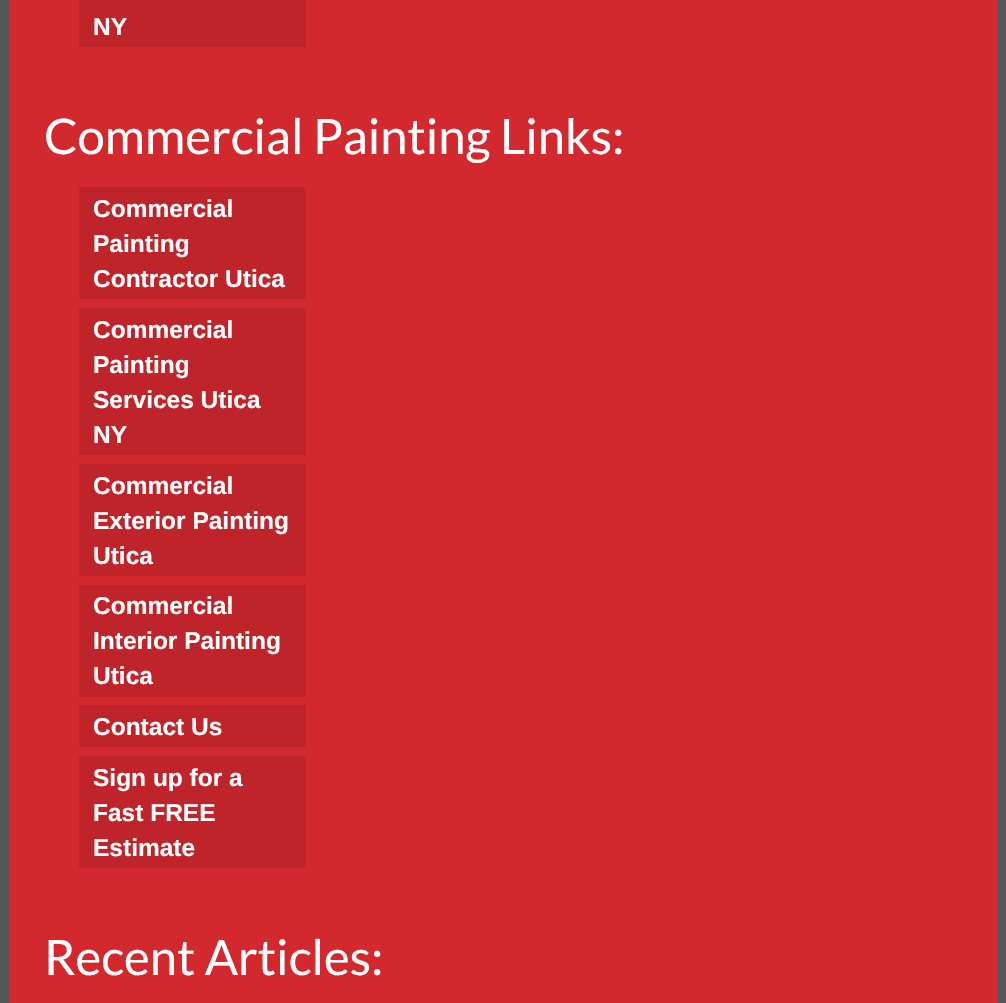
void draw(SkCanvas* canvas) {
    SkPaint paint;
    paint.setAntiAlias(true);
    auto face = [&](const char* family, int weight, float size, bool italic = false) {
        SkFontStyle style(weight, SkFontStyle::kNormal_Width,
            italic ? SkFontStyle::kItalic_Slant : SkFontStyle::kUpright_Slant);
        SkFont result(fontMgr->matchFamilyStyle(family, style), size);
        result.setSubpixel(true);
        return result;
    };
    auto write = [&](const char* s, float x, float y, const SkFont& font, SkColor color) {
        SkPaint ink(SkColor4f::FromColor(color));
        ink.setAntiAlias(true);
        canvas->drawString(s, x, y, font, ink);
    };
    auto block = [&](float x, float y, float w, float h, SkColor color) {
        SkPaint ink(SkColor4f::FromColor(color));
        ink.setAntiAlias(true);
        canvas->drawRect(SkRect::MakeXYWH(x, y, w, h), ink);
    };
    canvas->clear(SkColorSetRGB(86, 86, 86));
    block(9, 0, 989, 1003, SkColorSetRGB(211, 40, 45));
    block(79, 0, 227, 47, SkColorSetRGB(190, 36, 41));
    auto kFont1 = face("Liberation Sans", 700, 24.5f);
    write("NY", 93, 35, kFont1, SK_ColorWHITE);
    auto kFont2 = face("Lato", 400, 49);
    write("Commercial Painting Links:", 44, 154, kFont2, SK_ColorWHITE);
    block(79, 187, 227, 112, SkColorSetRGB(190, 36, 41));
    write("Commercial", 93, 217, kFont1, SK_ColorWHITE);
    write("Painting", 93, 252, kFont1, SK_ColorWHITE);
    write("Contractor Utica", 93, 287, kFont1, SK_ColorWHITE);
    block(79, 308, 227, 147, SkColorSetRGB(190, 36, 41));
    write("Commercial", 93, 338, kFont1, SK_ColorWHITE);
    write("Painting", 93, 373, kFont1, SK_ColorWHITE);
    write("Services Utica", 93, 408, kFont1, SK_ColorWHITE);
    write("NY", 93, 443, kFont1, SK_ColorWHITE);
    block(79, 464, 227, 112, SkColorSetRGB(190, 36, 41));
    write("Commercial", 93, 494, kFont1, SK_ColorWHITE);
    write("Exterior Painting", 93, 529, kFont1, SK_ColorWHITE);
    write("Utica", 93, 564, kFont1, SK_ColorWHITE);
    block(79, 585, 227, 112, SkColorSetRGB(190, 36, 41));
    write("Commercial", 93, 614, kFont1, SK_ColorWHITE);
    write("Interior Painting", 93, 649, kFont1, SK_ColorWHITE);
    write("Utica", 93, 684, kFont1, SK_ColorWHITE);
    block(79, 705, 227, 42, SkColorSetRGB(190, 36, 41));
    write("Contact Us", 93, 735, kFont1, SK_ColorWHITE);
    block(79, 756, 227, 112, SkColorSetRGB(190, 36, 41));
    write("Sign up for a", 93, 786, kFont1, SK_ColorWHITE);
    write("Fast FREE", 93, 821, kFont1, SK_ColorWHITE);
    write("Estimate", 93, 856, kFont1, SK_ColorWHITE);
    write("Recent Articles:", 44, 975, kFont2, SK_ColorWHITE);
}
